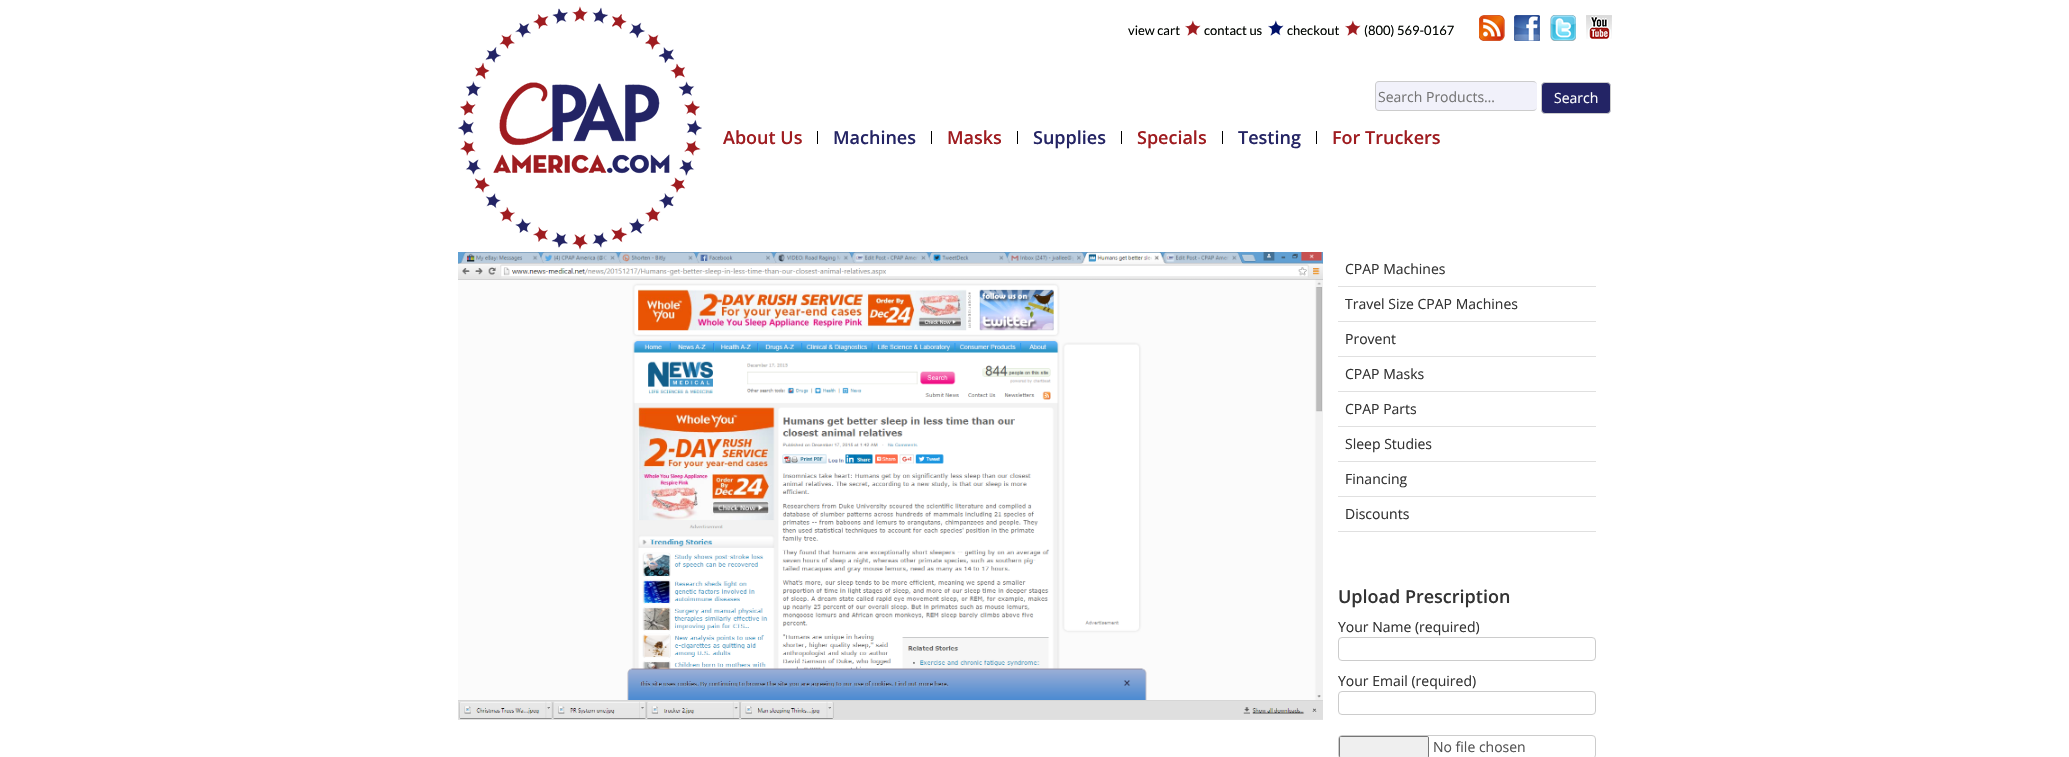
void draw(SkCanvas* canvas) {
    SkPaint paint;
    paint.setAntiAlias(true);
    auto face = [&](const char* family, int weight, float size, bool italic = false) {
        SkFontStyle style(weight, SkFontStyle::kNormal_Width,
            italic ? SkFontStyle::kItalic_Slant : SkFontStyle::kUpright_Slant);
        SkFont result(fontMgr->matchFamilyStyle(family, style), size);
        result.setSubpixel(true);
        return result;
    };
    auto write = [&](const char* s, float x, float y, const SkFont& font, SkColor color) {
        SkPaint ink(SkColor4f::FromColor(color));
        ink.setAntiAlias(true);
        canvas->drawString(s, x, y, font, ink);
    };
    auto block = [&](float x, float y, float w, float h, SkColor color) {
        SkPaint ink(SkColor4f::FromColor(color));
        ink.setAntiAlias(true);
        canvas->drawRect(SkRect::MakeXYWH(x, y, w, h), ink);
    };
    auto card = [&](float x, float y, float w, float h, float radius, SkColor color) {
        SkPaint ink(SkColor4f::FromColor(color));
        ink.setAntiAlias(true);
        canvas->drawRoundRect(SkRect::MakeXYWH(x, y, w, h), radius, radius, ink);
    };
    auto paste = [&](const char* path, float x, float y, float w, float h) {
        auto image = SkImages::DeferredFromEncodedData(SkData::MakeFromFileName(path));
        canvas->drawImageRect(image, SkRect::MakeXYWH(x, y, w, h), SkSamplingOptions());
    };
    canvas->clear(SK_ColorWHITE);
    paste("pic1.png", 458, 6, 244, 244);
    auto kFont1 = face("Lato", 400, 13);
    write("view cart", 1128, 35, kFont1, SkColorSetRGB(0, 4, 0));
    paste("pic2.png", 1185, 20, 16, 16);
    write("contact us", 1204, 35, kFont1, SkColorSetRGB(0, 4, 0));
    paste("pic3.png", 1268, 20, 16, 16);
    write("checkout", 1287, 35, kFont1, SkColorSetRGB(0, 4, 0));
    paste("pic2.png", 1345, 20, 16, 16);
    write("(800) 569-0167", 1364, 35, kFont1, SkColorSetRGB(0, 4, 0));
    paste("pic4.png", 1479, 15, 26, 26);
    paste("pic5.png", 1514, 15, 26, 26);
    paste("pic6.png", 1550, 15, 26, 26);
    paste("pic7.png", 1586, 15, 26, 24);
    card(1375, 81, 162, 30, 4, SkColorSetRGB(241, 241, 250));
    paint.setColor(SkColorSetRGB(204, 204, 204));
    canvas->drawPath(SkPathBuilder(SkPathFillType::kEvenOdd).moveTo(1379, 81).lineTo(1533, 81).cubicTo(1535, 81, 1537, 83, 1537, 85).lineTo(1537, 107).cubicTo(1537, 109, 1535, 111, 1533, 111).lineTo(1379, 111).cubicTo(1377, 111, 1375, 109, 1375, 107).lineTo(1375, 85).cubicTo(1375, 83, 1377, 81, 1379, 81).close().moveTo(1379, 82).lineTo(1533, 82).cubicTo(1535, 82, 1537, 83, 1537, 85).lineTo(1537, 107).cubicTo(1537, 109, 1535, 110, 1533, 110).lineTo(1379, 110).cubicTo(1377, 110, 1376, 109, 1376, 107).lineTo(1376, 85).cubicTo(1376, 83, 1377, 82, 1379, 82).close().detach(), paint);
    auto kFont2 = face("Open Sans", 400, 14);
    write("Search Products…", 1378, 102, kFont2, SkColorSetRGB(117, 117, 117));
    paint.setColor(SkColorSetRGB(35, 36, 101));
    canvas->drawRoundRect(SkRect::MakeXYWH(1541.5f, 82.5f, 69, 31), 3.5f, 3.5f, paint);
    paint.setStyle(SkPaint::kStroke_Style);
    paint.setStrokeWidth(1);
    paint.setColor(SkColorSetRGB(204, 204, 204));
    canvas->drawRoundRect(SkRect::MakeXYWH(1541.5f, 82.5f, 69, 31), 3.5f, 3.5f, paint);
    write("Search", 1554, 103, kFont2, SK_ColorWHITE);
    auto kFont3 = face("Open Sans", 600, 18);
    write("About Us", 723, 144, kFont3, SkColorSetRGB(159, 28, 32));
    block(817, 131, 1, 13, SK_ColorBLACK);
    write("Machines", 833, 144, kFont3, SkColorSetRGB(36, 36, 100));
    block(931, 131, 1, 13, SK_ColorBLACK);
    write("Masks", 947, 144, kFont3, SkColorSetRGB(159, 28, 32));
    block(1017, 131, 1, 13, SK_ColorBLACK);
    write("Supplies", 1033, 144, kFont3, SkColorSetRGB(36, 36, 100));
    block(1121, 131, 1, 13, SK_ColorBLACK);
    write("Specials", 1137, 144, kFont3, SkColorSetRGB(159, 28, 32));
    block(1222, 131, 1, 13, SK_ColorBLACK);
    write("Testing", 1238, 144, kFont3, SkColorSetRGB(36, 36, 100));
    block(1316, 131, 1, 13, SK_ColorBLACK);
    write("For Truckers", 1332, 144, kFont3, SkColorSetRGB(159, 28, 32));
    paste("pic8.png", 458, 252, 865, 468);
    block(1338, 286, 258, 1, SkColorSetRGB(224, 224, 224));
    write("CPAP Machines", 1345, 274, kFont2, SkColorSetRGB(51, 51, 51));
    block(1338, 321, 258, 1, SkColorSetRGB(224, 224, 224));
    write("Travel Size CPAP Machines", 1345, 309, kFont2, SkColorSetRGB(51, 51, 51));
    block(1338, 356, 258, 1, SkColorSetRGB(224, 224, 224));
    write("Provent", 1345, 344, kFont2, SkColorSetRGB(51, 51, 51));
    block(1338, 391, 258, 1, SkColorSetRGB(224, 224, 224));
    write("CPAP Masks", 1345, 379, kFont2, SkColorSetRGB(51, 51, 51));
    block(1338, 426, 258, 1, SkColorSetRGB(224, 224, 224));
    write("CPAP Parts", 1345, 414, kFont2, SkColorSetRGB(51, 51, 51));
    block(1338, 461, 258, 1, SkColorSetRGB(224, 224, 224));
    write("Sleep Studies", 1345, 449, kFont2, SkColorSetRGB(51, 51, 51));
    block(1338, 496, 258, 1, SkColorSetRGB(224, 224, 224));
    write("Financing", 1345, 484, kFont2, SkColorSetRGB(51, 51, 51));
    block(1338, 531, 258, 1, SkColorSetRGB(224, 224, 224));
    write("Discounts", 1345, 519, kFont2, SkColorSetRGB(51, 51, 51));
    write("Upload Prescription", 1338, 603, kFont3, SkColorSetRGB(51, 51, 51));
    write("Your Name (required)", 1338, 632, kFont2, SkColorSetRGB(51, 51, 51));
    canvas->drawRoundRect(SkRect::MakeXYWH(1338.5f, 637.5f, 257, 23), 3.5f, 3.5f, paint);
    write("Your Email (required)", 1338, 686, kFont2, SkColorSetRGB(51, 51, 51));
    canvas->drawRoundRect(SkRect::MakeXYWH(1338.5f, 691.5f, 257, 23), 3.5f, 3.5f, paint);
    canvas->drawRoundRect(SkRect::MakeXYWH(1338.5f, 735.5f, 257, 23), 3.5f, 3.5f, paint);
    paint.setStyle(SkPaint::kFill_Style);
    paint.setColor(SkColorSetRGB(239, 239, 239));
    canvas->drawPath(SkPathBuilder().moveTo(1342, 736).lineTo(1427, 736).cubicTo(1428, 736, 1429, 737, 1429, 738).lineTo(1429, 756).cubicTo(1429, 757, 1428, 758, 1427, 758).lineTo(1342, 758).cubicTo(1340.5f, 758, 1339, 756.5f, 1339, 755).lineTo(1339, 739).cubicTo(1339, 737.5f, 1340.5f, 736, 1342, 736).close().detach(), paint);
    paint.setColor(SkColorSetRGB(118, 118, 118));
    canvas->drawPath(SkPathBuilder(SkPathFillType::kEvenOdd).moveTo(1342, 736).cubicTo(1340, 736, 1339, 737, 1339, 739).lineTo(1339, 755).cubicTo(1339, 757, 1340, 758, 1342, 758).lineTo(1427, 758).cubicTo(1428, 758, 1429, 757, 1429, 756).lineTo(1429, 738).cubicTo(1429, 737, 1428, 736, 1427, 736).close().moveTo(1341, 737).cubicTo(1340, 737, 1340, 737, 1340, 738).lineTo(1340, 756).cubicTo(1340, 757, 1340, 757, 1341, 757).lineTo(1427, 757).cubicTo(1428, 757, 1428, 757, 1428, 756).lineTo(1428, 738).cubicTo(1428, 737, 1428, 737, 1427, 737).close().detach(), paint);
    write("No file chosen", 1433, 752, kFont2, SkColorSetRGB(85, 85, 85));
}
